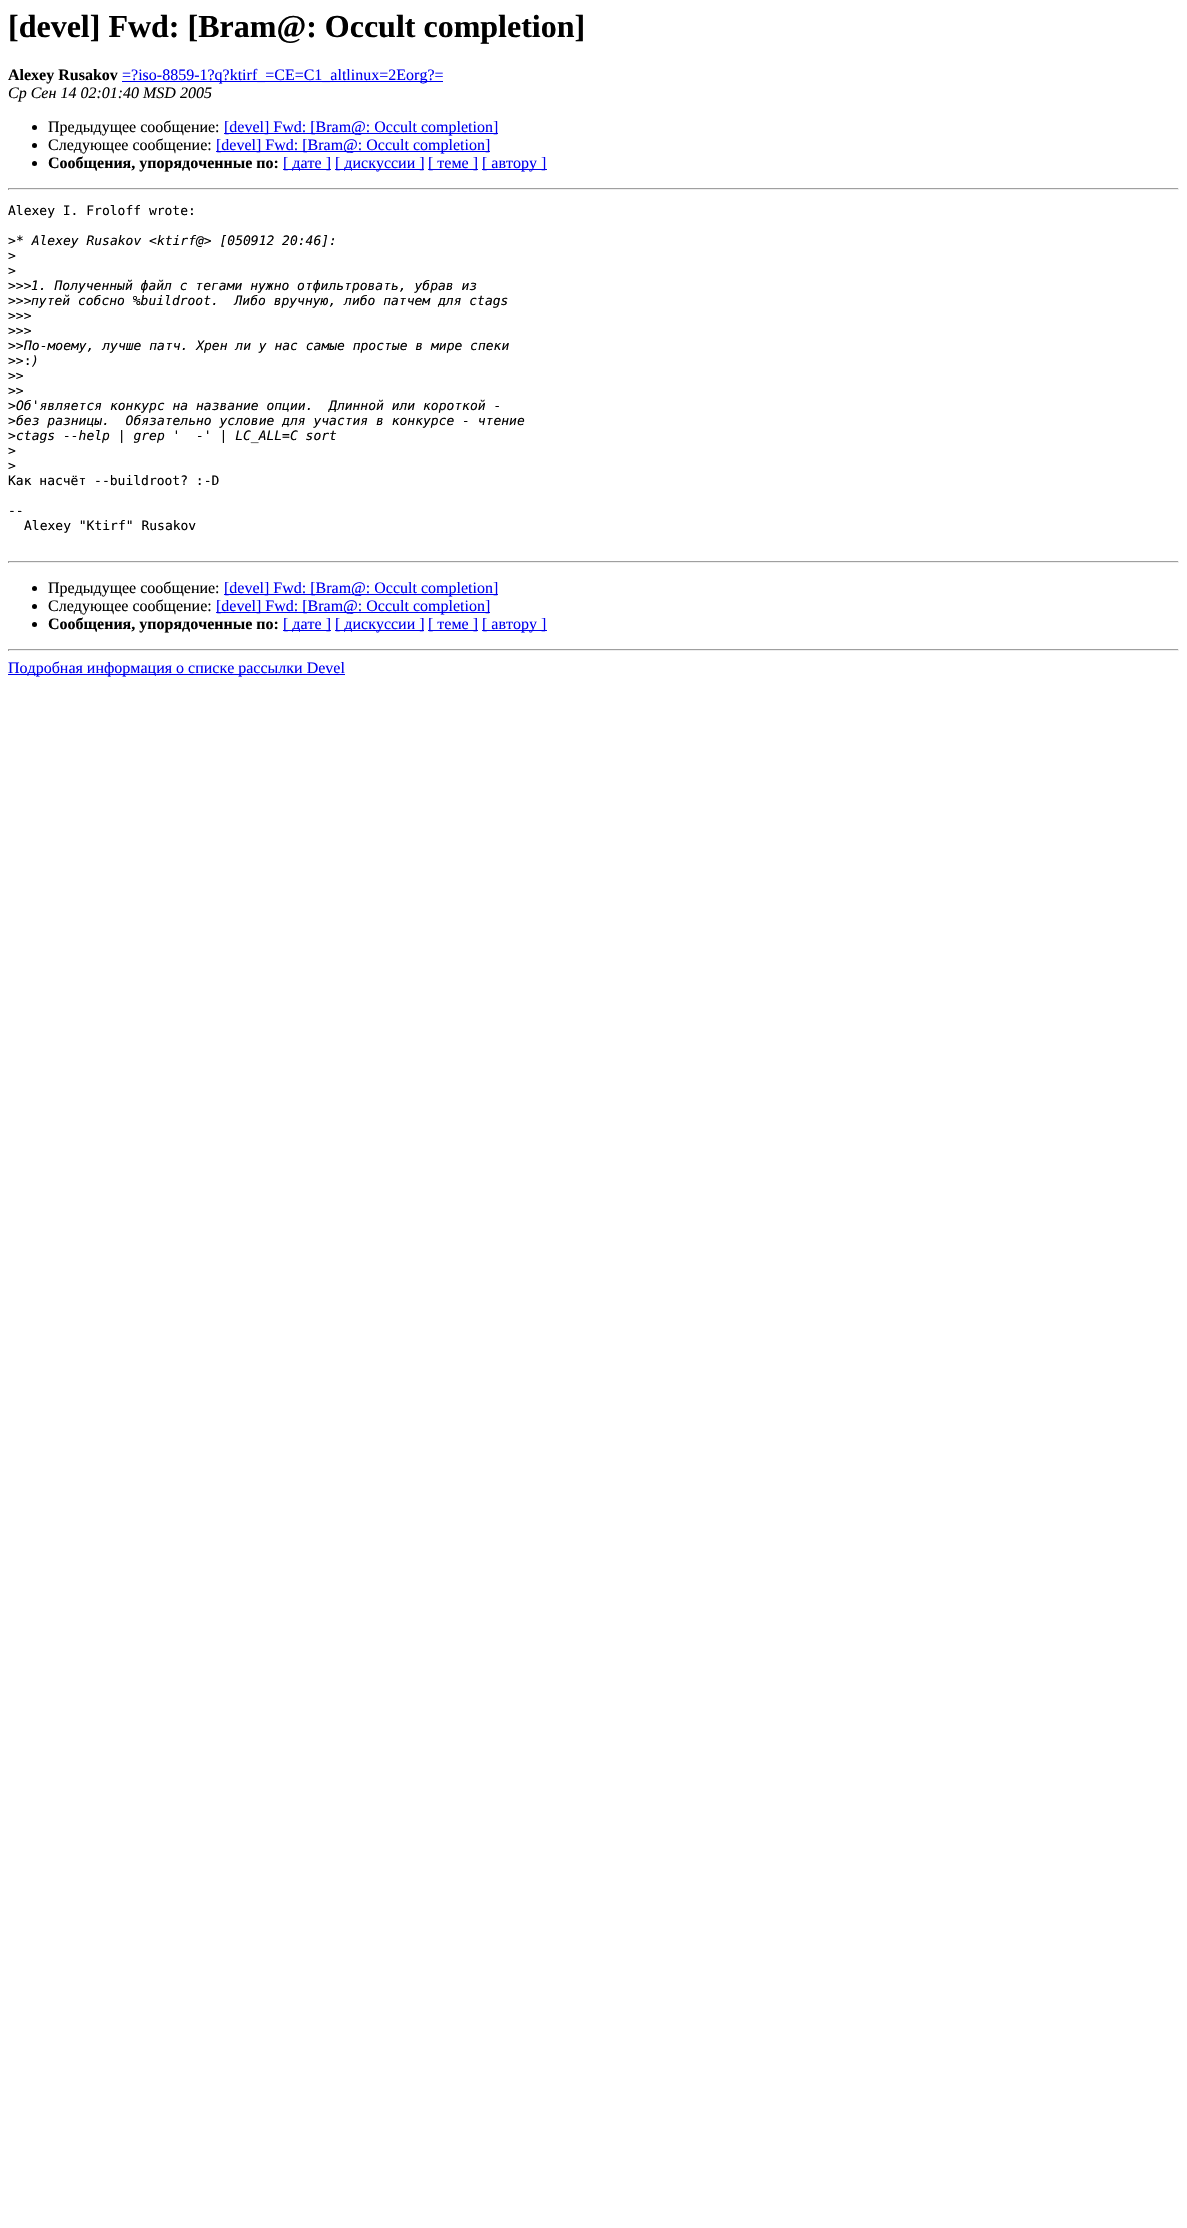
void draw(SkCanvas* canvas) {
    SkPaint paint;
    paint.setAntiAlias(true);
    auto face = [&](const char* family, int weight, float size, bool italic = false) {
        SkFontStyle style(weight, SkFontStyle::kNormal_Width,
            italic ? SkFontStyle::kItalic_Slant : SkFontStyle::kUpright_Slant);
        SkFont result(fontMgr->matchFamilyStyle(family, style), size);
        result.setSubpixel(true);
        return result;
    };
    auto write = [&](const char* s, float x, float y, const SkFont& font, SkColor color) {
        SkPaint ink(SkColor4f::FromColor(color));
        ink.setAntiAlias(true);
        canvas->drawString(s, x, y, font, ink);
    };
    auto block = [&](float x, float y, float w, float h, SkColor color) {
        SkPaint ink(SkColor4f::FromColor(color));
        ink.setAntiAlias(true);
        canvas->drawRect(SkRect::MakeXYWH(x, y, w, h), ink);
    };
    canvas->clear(SK_ColorWHITE);
    auto kFont1 = face("Liberation Serif", 700, 32);
    write("[devel] Fwd: [Bram@: Occult completion]", 8, 37, kFont1, SK_ColorBLACK);
    auto kFont2 = face("Liberation Serif", 700, 16);
    write("Alexey Rusakov", 8, 80, kFont2, SK_ColorBLACK);
    block(122, 81, 321, 1, SkColorSetRGB(0, 0, 238));
    auto kFont3 = face("Liberation Serif", 400, 16);
    write("=?iso-8859-1?q?ktirf_=CE=C1_altlinux=2Eorg?=", 122, 80, kFont3, SkColorSetRGB(0, 0, 238));
    auto kFont4 = face("Liberation Serif", 400, 16, true);
    write("Ср Сен 14 02:01:40 MSD 2005", 8, 98, kFont4, SK_ColorBLACK);
    paint.setColor(SK_ColorBLACK);
    canvas->drawCircle(34.5f, 127.5f, 2.5f, paint);
    write("Предыдущее сообщение:", 48, 132, kFont3, SK_ColorBLACK);
    block(224, 133, 274, 1, SkColorSetRGB(0, 0, 238));
    write("[devel] Fwd: [Bram@: Occult completion]", 224, 132, kFont3, SkColorSetRGB(0, 0, 238));
    canvas->drawCircle(34.5f, 145.5f, 2.5f, paint);
    write("Следующее сообщение:", 48, 150, kFont3, SK_ColorBLACK);
    block(216, 151, 274, 1, SkColorSetRGB(0, 0, 238));
    write("[devel] Fwd: [Bram@: Occult completion]", 216, 150, kFont3, SkColorSetRGB(0, 0, 238));
    canvas->drawCircle(34.5f, 163.5f, 2.5f, paint);
    write("Сообщения, упорядоченные по:", 48, 168, kFont2, SK_ColorBLACK);
    block(283, 169, 48, 1, SkColorSetRGB(0, 0, 238));
    write("[ дате ]", 283, 168, kFont3, SkColorSetRGB(0, 0, 238));
    block(335, 169, 89, 1, SkColorSetRGB(0, 0, 238));
    write("[ дискуссии ]", 335, 168, kFont3, SkColorSetRGB(0, 0, 238));
    block(428, 169, 50, 1, SkColorSetRGB(0, 0, 238));
    write("[ теме ]", 428, 168, kFont3, SkColorSetRGB(0, 0, 238));
    block(482, 169, 65, 1, SkColorSetRGB(0, 0, 238));
    write("[ автору ]", 482, 168, kFont3, SkColorSetRGB(0, 0, 238));
    block(8, 188, 1171, 1, SkColorSetRGB(159, 159, 159));
    block(1178, 188, 1, 2, SkColorSetRGB(238, 238, 238));
    block(8, 189, 1171, 1, SkColorSetRGB(238, 238, 238));
    block(8, 188, 1, 2, SkColorSetRGB(159, 159, 159));
    auto kFont5 = face("DejaVu Sans Mono", 400, 13);
    write("Alexey I. Froloff wrote:", 8, 215, kFont5, SK_ColorBLACK);
    write(">", 8, 245, kFont5, SK_ColorBLACK);
    auto kFont6 = face("DejaVu Sans Mono", 400, 13, true);
    write("* Alexey Rusakov <ktirf@> [050912 20:46]:", 16, 245, kFont6, SK_ColorBLACK);
    write(">", 8, 260, kFont5, SK_ColorBLACK);
    write(">", 8, 275, kFont5, SK_ColorBLACK);
    write(">>>", 8, 290, kFont5, SK_ColorBLACK);
    write("1. Полученный файл с тегами нужно отфильтровать, убрав из", 31, 290, kFont6, SK_ColorBLACK);
    write(">>>", 8, 305, kFont5, SK_ColorBLACK);
    write("путей собсно %buildroot.  Либо вручную, либо патчем для ctags", 31, 305, kFont6, SK_ColorBLACK);
    write(">>>", 8, 320, kFont5, SK_ColorBLACK);
    write(">>>", 8, 335, kFont5, SK_ColorBLACK);
    write(">>", 8, 350, kFont5, SK_ColorBLACK);
    write("По-моему, лучше патч. Хрен ли у нас самые простые в мире спеки", 24, 350, kFont6, SK_ColorBLACK);
    write(">>:", 8, 365, kFont5, SK_ColorBLACK);
    write(")", 31, 365, kFont6, SK_ColorBLACK);
    write(">>", 8, 380, kFont5, SK_ColorBLACK);
    write(">>", 8, 395, kFont5, SK_ColorBLACK);
    write(">", 8, 410, kFont5, SK_ColorBLACK);
    write("Об'является конкурс на название опции.  Длинной или короткой -", 16, 410, kFont6, SK_ColorBLACK);
    write(">", 8, 425, kFont5, SK_ColorBLACK);
    write("без разницы.  Обязательно условие для участия в конкурсе - чтение", 16, 425, kFont6, SK_ColorBLACK);
    write(">", 8, 440, kFont5, SK_ColorBLACK);
    write("ctags --help | grep '  -' | LC_ALL=C sort", 16, 440, kFont6, SK_ColorBLACK);
    write(">", 8, 455, kFont5, SK_ColorBLACK);
    write(">", 8, 470, kFont5, SK_ColorBLACK);
    write("Как насчёт --buildroot? :-D", 8, 485, kFont5, SK_ColorBLACK);
    write("--", 8, 515, kFont5, SK_ColorBLACK);
    write("Alexey \"Ktirf\" Rusakov", 24, 530, kFont5, SK_ColorBLACK);
    block(8, 561, 1171, 1, SkColorSetRGB(159, 159, 159));
    block(1178, 561, 1, 2, SkColorSetRGB(238, 238, 238));
    block(8, 562, 1171, 1, SkColorSetRGB(238, 238, 238));
    block(8, 561, 1, 2, SkColorSetRGB(159, 159, 159));
    canvas->drawCircle(34.5f, 588.5f, 2.5f, paint);
    write("Предыдущее сообщение:", 48, 593, kFont3, SK_ColorBLACK);
    block(224, 594, 274, 1, SkColorSetRGB(0, 0, 238));
    write("[devel] Fwd: [Bram@: Occult completion]", 224, 593, kFont3, SkColorSetRGB(0, 0, 238));
    canvas->drawCircle(34.5f, 606.5f, 2.5f, paint);
    write("Следующее сообщение:", 48, 611, kFont3, SK_ColorBLACK);
    block(216, 612, 274, 1, SkColorSetRGB(0, 0, 238));
    write("[devel] Fwd: [Bram@: Occult completion]", 216, 611, kFont3, SkColorSetRGB(0, 0, 238));
    canvas->drawCircle(34.5f, 624.5f, 2.5f, paint);
    write("Сообщения, упорядоченные по:", 48, 629, kFont2, SK_ColorBLACK);
    block(283, 630, 48, 1, SkColorSetRGB(0, 0, 238));
    write("[ дате ]", 283, 629, kFont3, SkColorSetRGB(0, 0, 238));
    block(335, 630, 89, 1, SkColorSetRGB(0, 0, 238));
    write("[ дискуссии ]", 335, 629, kFont3, SkColorSetRGB(0, 0, 238));
    block(428, 630, 50, 1, SkColorSetRGB(0, 0, 238));
    write("[ теме ]", 428, 629, kFont3, SkColorSetRGB(0, 0, 238));
    block(482, 630, 65, 1, SkColorSetRGB(0, 0, 238));
    write("[ автору ]", 482, 629, kFont3, SkColorSetRGB(0, 0, 238));
    block(8, 649, 1171, 1, SkColorSetRGB(159, 159, 159));
    block(1178, 649, 1, 2, SkColorSetRGB(238, 238, 238));
    block(8, 650, 1171, 1, SkColorSetRGB(238, 238, 238));
    block(8, 649, 1, 2, SkColorSetRGB(159, 159, 159));
    block(8, 674, 337, 1, SkColorSetRGB(0, 0, 238));
    write("Подробная информация о списке рассылки Devel", 8, 673, kFont3, SkColorSetRGB(0, 0, 238));
}
